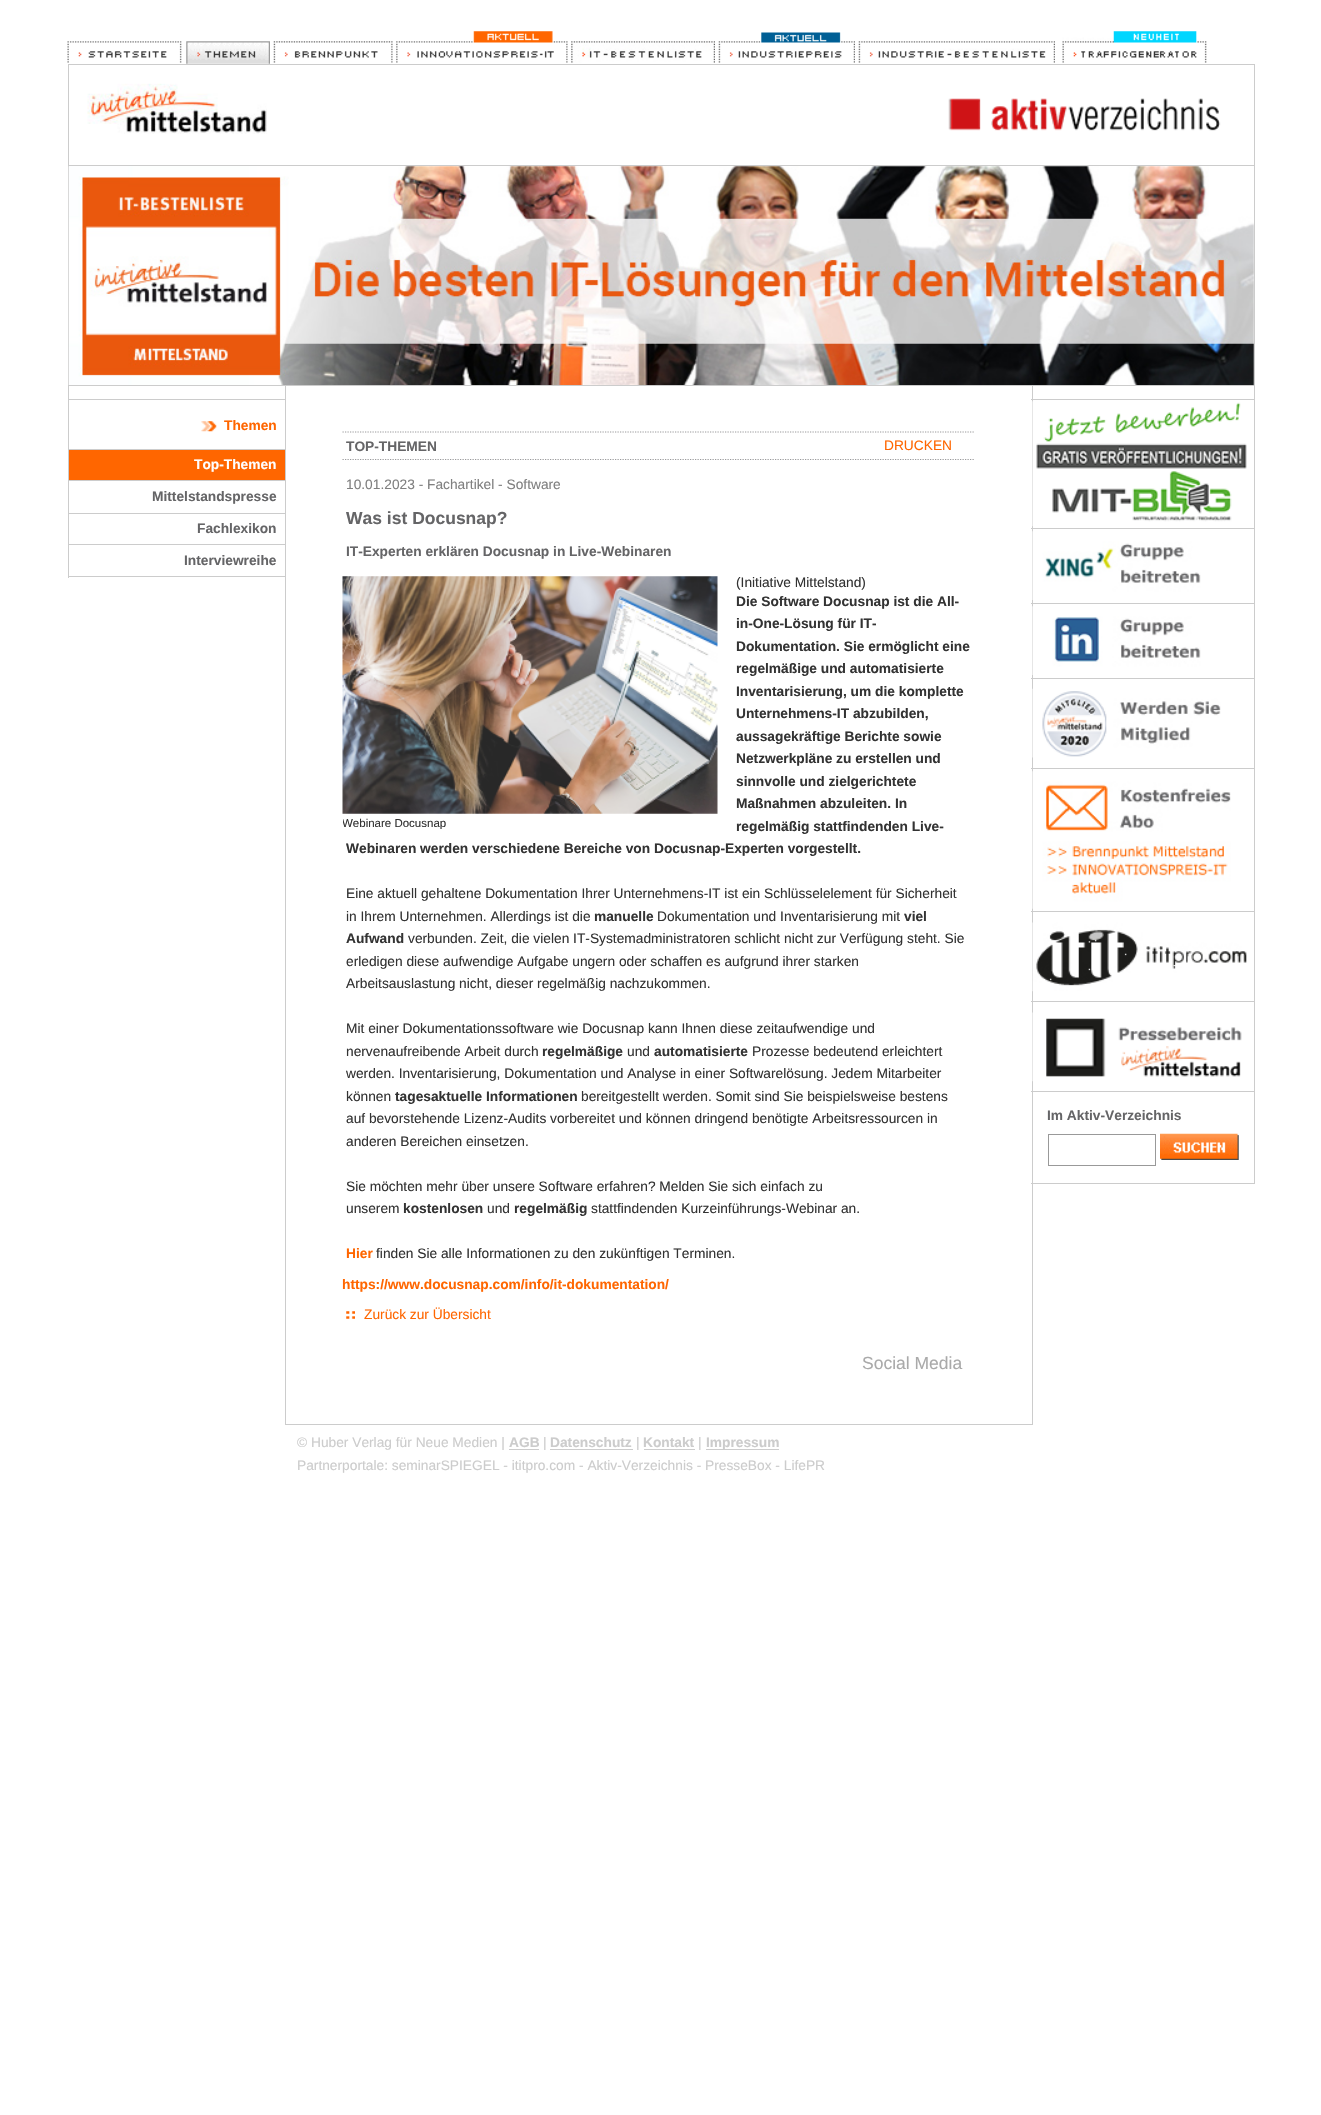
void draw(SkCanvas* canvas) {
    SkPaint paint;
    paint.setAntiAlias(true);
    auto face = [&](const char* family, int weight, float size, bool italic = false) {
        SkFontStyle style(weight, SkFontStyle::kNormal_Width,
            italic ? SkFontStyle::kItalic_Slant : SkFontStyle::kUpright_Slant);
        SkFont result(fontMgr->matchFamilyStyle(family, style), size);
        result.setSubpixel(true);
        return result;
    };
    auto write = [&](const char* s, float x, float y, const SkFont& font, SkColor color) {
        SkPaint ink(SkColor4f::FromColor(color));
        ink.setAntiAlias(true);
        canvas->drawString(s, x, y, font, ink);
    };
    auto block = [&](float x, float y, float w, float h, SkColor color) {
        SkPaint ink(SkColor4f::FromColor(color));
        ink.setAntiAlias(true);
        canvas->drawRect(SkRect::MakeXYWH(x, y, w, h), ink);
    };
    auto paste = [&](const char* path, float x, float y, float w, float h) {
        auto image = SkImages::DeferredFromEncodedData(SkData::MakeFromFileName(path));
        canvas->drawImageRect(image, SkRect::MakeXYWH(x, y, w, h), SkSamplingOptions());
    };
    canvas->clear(SK_ColorWHITE);
    paste("pic1.png", 67, 41, 115, 22);
    paste("pic2.png", 186, 41, 84, 23);
    paste("pic3.png", 273, 41, 120, 22);
    paste("pic4.png", 396, 31, 172, 32);
    paste("pic5.png", 571, 41, 144, 22);
    paste("pic6.png", 718, 32, 137, 31);
    paste("pic7.png", 858, 41, 197, 22);
    paste("pic8.png", 1062, 31, 145, 32);
    block(68, 64, 1187, 1, SkColorSetRGB(204, 204, 204));
    block(1254, 64, 1, 101, SkColorSetRGB(204, 204, 204));
    block(68, 64, 1, 101, SkColorSetRGB(204, 204, 204));
    paste("pic9.png", 87, 83, 180, 51);
    paste("pic10.png", 948, 98, 273, 33);
    block(68, 165, 1187, 1, SkColorSetRGB(204, 204, 204));
    block(1254, 165, 1, 220, SkColorSetRGB(204, 204, 204));
    block(68, 165, 1, 220, SkColorSetRGB(204, 204, 204));
    paste("pic11.png", 68, 166, 1186, 219);
    block(68, 385, 218, 1, SkColorSetRGB(204, 204, 204));
    block(68, 385, 1, 14, SkColorSetRGB(204, 204, 204));
    block(68, 576, 218, 1, SkColorSetRGB(204, 204, 204));
    block(68, 399, 1, 179, SkColorSetRGB(204, 204, 204));
    block(69, 399, 216, 1, SkColorSetRGB(204, 204, 204));
    paste("pic12.png", 201, 421, 16, 11);
    auto kFont1 = face("Liberation Sans", 700, 13.75f);
    write("Themen", 224, 430, kFont1, SkColorSetRGB(255, 102, 0));
    block(69, 450, 216, 30, SkColorSetRGB(255, 102, 0));
    block(69, 449, 216, 1, SkColorSetRGB(204, 204, 204));
    write("Top-Themen", 194, 469, kFont1, SK_ColorWHITE);
    block(69, 480, 216, 1, SkColorSetRGB(204, 204, 204));
    write("Mittelstandspresse", 152, 501, kFont1, SkColorSetRGB(101, 101, 103));
    block(69, 513, 216, 1, SkColorSetRGB(204, 204, 204));
    write("Fachlexikon", 197, 533, kFont1, SkColorSetRGB(101, 101, 103));
    block(69, 544, 216, 1, SkColorSetRGB(204, 204, 204));
    write("Interviewreihe", 184, 565, kFont1, SkColorSetRGB(101, 101, 103));
    paint.setStyle(SkPaint::kStroke_Style);
    paint.setStrokeWidth(1);
    paint.setColor(SkColorSetRGB(204, 204, 204));
    canvas->drawRect(SkRect::MakeXYWH(285.5f, 385.5f, 747, 1039), paint);
    paint.setStrokeWidth(1.2f);
    paint.setColor(SkColorSetRGB(154, 154, 156));
    paint.setPathEffect(SkDashPathEffect::Make({{1.25f, 1.25f}}, 0));
    canvas->drawPath(SkPathBuilder().moveTo(342.5f, 432).lineTo(975, 432).detach(), paint);
    paint.setPathEffect(nullptr);
    paint.setPathEffect(SkDashPathEffect::Make({{1.25f, 1.25f}}, 0));
    canvas->drawPath(SkPathBuilder().moveTo(342.5f, 459.5f).lineTo(975, 459.5f).detach(), paint);
    paint.setPathEffect(nullptr);
    write("TOP-THEMEN", 346, 451, kFont1, SkColorSetRGB(101, 101, 103));
    auto kFont2 = face("Liberation Sans", 400, 13.75f);
    write("DRUCKEN", 884, 450, kFont2, SkColorSetRGB(255, 102, 0));
    write("10.01.2023 - Fachartikel - Software", 346, 489, kFont2, SkColorSetRGB(128, 128, 128));
    auto kFont3 = face("Liberation Sans", 700, 17.5f);
    write("Was ist Docusnap?", 346, 524, kFont3, SkColorSetRGB(101, 101, 103));
    write("IT-Experten erklären Docusnap in Live-Webinaren", 346, 556, kFont1, SkColorSetRGB(101, 101, 103));
    write("(Initiative Mittelstand)", 736, 587, kFont2, SkColorSetRGB(51, 51, 51));
    write("Die Software Docusnap ist die All-", 736, 606, kFont1, SkColorSetRGB(51, 51, 51));
    write("in-One-Lösung für IT-", 736, 628, kFont1, SkColorSetRGB(51, 51, 51));
    write("Dokumentation. Sie ermöglicht eine", 736, 651, kFont1, SkColorSetRGB(51, 51, 51));
    write("regelmäßige und automatisierte", 736, 673, kFont1, SkColorSetRGB(51, 51, 51));
    write("Inventarisierung, um die komplette", 736, 696, kFont1, SkColorSetRGB(51, 51, 51));
    write("Unternehmens-IT abzubilden,", 736, 718, kFont1, SkColorSetRGB(51, 51, 51));
    write("aussagekräftige Berichte sowie", 736, 741, kFont1, SkColorSetRGB(51, 51, 51));
    write("Netzwerkpläne zu erstellen und", 736, 763, kFont1, SkColorSetRGB(51, 51, 51));
    write("sinnvolle und zielgerichtete", 736, 786, kFont1, SkColorSetRGB(51, 51, 51));
    write("Maßnahmen abzuleiten. In", 736, 808, kFont1, SkColorSetRGB(51, 51, 51));
    write("regelmäßig stattfindenden Live-", 736, 831, kFont1, SkColorSetRGB(51, 51, 51));
    write("Webinaren werden verschiedene Bereiche von Docusnap-Experten vorgestellt.", 346, 853, kFont1, SkColorSetRGB(51, 51, 51));
    write("Eine aktuell gehaltene Dokumentation Ihrer Unternehmens-IT ist ein Schlüsselelement für Sicherheit", 346, 898, kFont2, SkColorSetRGB(51, 51, 51));
    write("in Ihrem Unternehmen. Allerdings ist die", 346, 921, kFont2, SkColorSetRGB(51, 51, 51));
    write("manuelle", 594, 921, kFont1, SkColorSetRGB(51, 51, 51));
    write("Dokumentation und Inventarisierung mit", 657, 921, kFont2, SkColorSetRGB(51, 51, 51));
    write("viel", 904, 921, kFont1, SkColorSetRGB(51, 51, 51));
    write("Aufwand", 346, 943, kFont1, SkColorSetRGB(51, 51, 51));
    write("verbunden. Zeit, die vielen IT-Systemadministratoren schlicht nicht zur Verfügung steht. Sie", 408, 943, kFont2, SkColorSetRGB(51, 51, 51));
    write("erledigen diese aufwendige Aufgabe ungern oder schaffen es aufgrund ihrer starken", 346, 966, kFont2, SkColorSetRGB(51, 51, 51));
    write("Arbeitsauslastung nicht, dieser regelmäßig nachzukommen.", 346, 988, kFont2, SkColorSetRGB(51, 51, 51));
    write("Mit einer Dokumentationssoftware wie Docusnap kann Ihnen diese zeitaufwendige und", 346, 1033, kFont2, SkColorSetRGB(51, 51, 51));
    write("nervenaufreibende Arbeit durch", 346, 1056, kFont2, SkColorSetRGB(51, 51, 51));
    write("regelmäßige", 542, 1056, kFont1, SkColorSetRGB(51, 51, 51));
    write("und", 627, 1056, kFont2, SkColorSetRGB(51, 51, 51));
    write("automatisierte", 654, 1056, kFont1, SkColorSetRGB(51, 51, 51));
    write("Prozesse bedeutend erleichtert", 752, 1056, kFont2, SkColorSetRGB(51, 51, 51));
    write("werden. Inventarisierung, Dokumentation und Analyse in einer Softwarelösung. Jedem Mitarbeiter", 346, 1078, kFont2, SkColorSetRGB(51, 51, 51));
    write("können", 346, 1101, kFont2, SkColorSetRGB(51, 51, 51));
    write("tagesaktuelle Informationen", 395, 1101, kFont1, SkColorSetRGB(51, 51, 51));
    write("bereitgestellt werden. Somit sind Sie beispielsweise bestens", 581, 1101, kFont2, SkColorSetRGB(51, 51, 51));
    write("auf bevorstehende Lizenz-Audits vorbereitet und können dringend benötigte Arbeitsressourcen in", 346, 1123, kFont2, SkColorSetRGB(51, 51, 51));
    write("anderen Bereichen einsetzen.", 346, 1146, kFont2, SkColorSetRGB(51, 51, 51));
    write("Sie möchten mehr über unsere Software erfahren? Melden Sie sich einfach zu", 346, 1191, kFont2, SkColorSetRGB(51, 51, 51));
    write("unserem", 346, 1213, kFont2, SkColorSetRGB(51, 51, 51));
    write("kostenlosen", 403, 1213, kFont1, SkColorSetRGB(51, 51, 51));
    write("und", 487, 1213, kFont2, SkColorSetRGB(51, 51, 51));
    write("regelmäßig", 514, 1213, kFont1, SkColorSetRGB(51, 51, 51));
    write("stattfindenden Kurzeinführungs-Webinar an.", 591, 1213, kFont2, SkColorSetRGB(51, 51, 51));
    write("Hier", 346, 1258, kFont1, SkColorSetRGB(255, 102, 0));
    write("finden Sie alle Informationen zu den zukünftigen Terminen.", 376, 1258, kFont2, SkColorSetRGB(51, 51, 51));
    paste("pic13.png", 342, 576, 376, 238);
    canvas->save();
    canvas->clipRect(SkRect::MakeXYWH(343, 814, 337, 15));
    auto kFont4 = face("Liberation Sans", 400, 11.5f);
    write("Webinare Docusnap", 342, 827, kFont4, SkColorSetRGB(51, 51, 51));
    canvas->restore();
    write("https://www.docusnap.com/info/it-dokumentation/", 342, 1289, kFont1, SkColorSetRGB(255, 102, 0));
    paste("pic14.png", 346, 1311, 9, 8);
    write("Zurück zur Übersicht", 364, 1319, kFont2, SkColorSetRGB(255, 102, 0));
    auto kFont5 = face("Liberation Sans", 400, 17.5f);
    write("Social Media", 862, 1369, kFont5, SkColorSetRGB(170, 170, 170));
    write("© Huber Verlag für Neue Medien |", 297, 1447, kFont2, SkColorSetRGB(204, 204, 204));
    write("AGB", 509, 1447, kFont1, SkColorSetRGB(204, 204, 204));
    block(509, 1449, 30, 1, SkColorSetRGB(204, 204, 204));
    write("|", 543, 1447, kFont2, SkColorSetRGB(204, 204, 204));
    write("Datenschutz", 550, 1447, kFont1, SkColorSetRGB(204, 204, 204));
    block(550, 1449, 83, 1, SkColorSetRGB(204, 204, 204));
    write("|", 636, 1447, kFont2, SkColorSetRGB(204, 204, 204));
    write("Kontakt", 643, 1447, kFont1, SkColorSetRGB(204, 204, 204));
    block(644, 1449, 51, 1, SkColorSetRGB(204, 204, 204));
    write("|", 698, 1447, kFont2, SkColorSetRGB(204, 204, 204));
    block(706, 1449, 73, 1, SkColorSetRGB(204, 204, 204));
    write("Impressum", 706, 1447, kFont1, SkColorSetRGB(204, 204, 204));
    write("Partnerportale: seminarSPIEGEL - ititpro.com - Aktiv-Verzeichnis - PresseBox - LifePR", 297, 1470, kFont2, SkColorSetRGB(204, 204, 204));
    block(1031, 385, 224, 1, SkColorSetRGB(204, 204, 204));
    block(1254, 385, 1, 799, SkColorSetRGB(204, 204, 204));
    block(1031, 399, 223, 1, SkColorSetRGB(204, 204, 204));
    block(1031, 528, 223, 1, SkColorSetRGB(204, 204, 204));
    paste("pic15.png", 1032, 401, 215, 126);
    block(1031, 603, 223, 1, SkColorSetRGB(204, 204, 204));
    paste("pic16.png", 1032, 531, 169, 69);
    block(1031, 678, 223, 1, SkColorSetRGB(204, 204, 204));
    paste("pic17.png", 1032, 606, 169, 69);
    block(1031, 768, 223, 1, SkColorSetRGB(204, 204, 204));
    paste("pic18.png", 1032, 688, 189, 70);
    block(1031, 911, 223, 1, SkColorSetRGB(204, 204, 204));
    paste("pic19.png", 1032, 771, 199, 138);
    block(1031, 1001, 223, 1, SkColorSetRGB(204, 204, 204));
    paste("pic20.png", 1032, 922, 215, 70);
    block(1031, 1091, 223, 1, SkColorSetRGB(204, 204, 204));
    paste("pic21.png", 1032, 1012, 210, 70);
    block(1031, 1183, 223, 1, SkColorSetRGB(204, 204, 204));
    write("Im Aktiv-Verzeichnis", 1047, 1120, kFont1, SkColorSetRGB(101, 101, 103));
    paint.setStrokeWidth(1);
    paint.setColor(SkColorSetRGB(153, 153, 153));
    canvas->drawRect(SkRect::MakeXYWH(1048.5f, 1134.5f, 107, 31), paint);
    paste("pic22.png", 1160, 1133, 79, 27);
}
